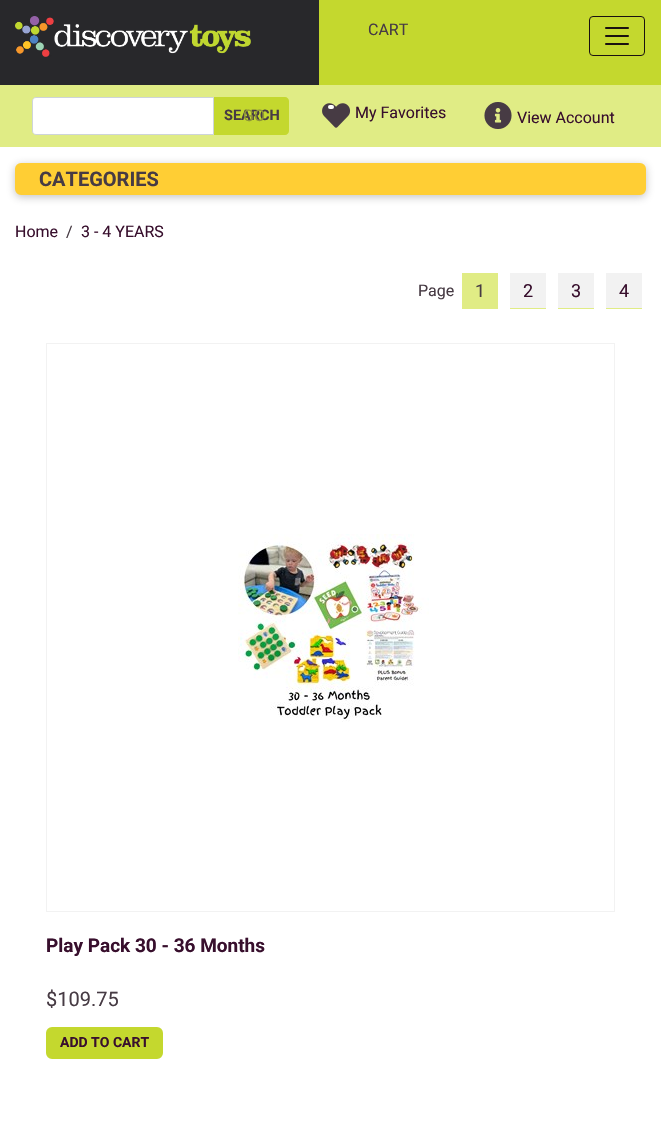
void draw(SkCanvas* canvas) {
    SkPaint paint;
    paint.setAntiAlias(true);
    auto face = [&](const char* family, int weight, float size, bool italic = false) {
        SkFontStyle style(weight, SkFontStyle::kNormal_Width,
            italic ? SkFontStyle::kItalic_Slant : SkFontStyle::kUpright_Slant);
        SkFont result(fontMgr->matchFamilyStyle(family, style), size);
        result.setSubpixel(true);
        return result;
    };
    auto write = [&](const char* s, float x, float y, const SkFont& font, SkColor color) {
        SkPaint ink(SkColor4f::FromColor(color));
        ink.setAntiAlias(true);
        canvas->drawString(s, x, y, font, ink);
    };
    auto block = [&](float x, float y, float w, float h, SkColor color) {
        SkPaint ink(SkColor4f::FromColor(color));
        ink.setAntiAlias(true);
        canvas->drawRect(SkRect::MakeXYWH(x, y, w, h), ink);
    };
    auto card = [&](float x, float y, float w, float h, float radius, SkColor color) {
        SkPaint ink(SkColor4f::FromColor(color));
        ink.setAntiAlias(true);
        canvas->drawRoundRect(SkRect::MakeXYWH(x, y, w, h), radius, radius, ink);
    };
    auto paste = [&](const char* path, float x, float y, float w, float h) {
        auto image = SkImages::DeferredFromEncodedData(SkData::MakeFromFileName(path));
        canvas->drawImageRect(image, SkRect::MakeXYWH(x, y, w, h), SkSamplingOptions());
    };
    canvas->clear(SK_ColorWHITE);
    block(0, 0, 319, 85, SkColorSetRGB(40, 40, 43));
    paste("pic1.png", 15, 16, 236, 41);
    block(319, 0, 342, 85, SkColorSetRGB(196, 216, 46));
    auto kFont1 = face("Roboto", 400, 16);
    write("CART", 368, 35, kFont1, SkColorSetRGB(71, 59, 68));
    paint.setStyle(SkPaint::kStroke_Style);
    paint.setStrokeWidth(1);
    paint.setColor(SkColorSetRGB(26, 17, 16));
    canvas->drawRoundRect(SkRect::MakeXYWH(589.5f, 16.5f, 55, 39), 3.5f, 3.5f, paint);
    paste("pic2.png", 605, 27, 24, 18);
    block(0, 85, 661, 62, SkColorSetRGB(224, 236, 133));
    paint.setStyle(SkPaint::kFill_Style);
    paint.setColor(SK_ColorWHITE);
    canvas->drawPath(SkPathBuilder().moveTo(36, 97.5f).lineTo(213.5f, 97.5f).lineTo(213.5f, 134.5f).lineTo(36, 134.5f).cubicTo(34, 134.5f, 32.5f, 133, 32.5f, 131).lineTo(32.5f, 101).cubicTo(32.5f, 99, 34, 97.5f, 36, 97.5f).close().detach(), paint);
    paint.setStyle(SkPaint::kStroke_Style);
    paint.setColor(SkColorSetRGB(206, 212, 218));
    canvas->drawPath(SkPathBuilder().moveTo(36, 97.5f).lineTo(213.5f, 97.5f).lineTo(213.5f, 134.5f).lineTo(36, 134.5f).cubicTo(34, 134.5f, 32.5f, 133, 32.5f, 131).lineTo(32.5f, 101).cubicTo(32.5f, 99, 34, 97.5f, 36, 97.5f).close().detach(), paint);
    paint.setStyle(SkPaint::kFill_Style);
    paint.setColor(SkColorSetRGB(196, 216, 46));
    canvas->drawPath(SkPathBuilder().moveTo(214, 97).lineTo(285, 97).cubicTo(287, 97, 289, 99, 289, 101).lineTo(289, 131).cubicTo(289, 133, 287, 135, 285, 135).lineTo(214, 135).close().detach(), paint);
    auto kFont2 = face("Roboto", 700, 14.5f);
    write("SEARCH", 224, 120, kFont2, SkColorSetRGB(71, 59, 68));
    write("GO", 243, 121, kFont1, SkColorSetRGB(143, 150, 55));
    paste("pic3.png", 322, 103, 29, 25);
    card(328, 105, 6, 4, 2, SK_ColorWHITE);
    write("My Favorites", 355, 118, kFont1, SkColorSetRGB(56, 15, 45));
    paste("pic4.png", 484, 102, 28, 27);
    write("View Account", 517, 123, kFont1, SkColorSetRGB(56, 15, 45));
    paint.setColor(SkColorSetARGB(120, 126, 126, 128));
    paint.setMaskFilter(SkMaskFilter::MakeBlur(kNormal_SkBlurStyle, 4));
    canvas->drawRoundRect(SkRect::MakeXYWH(15, 165, 631, 32), 6, 6, paint);
    paint.setMaskFilter(nullptr);
    paint.setColor(SkColorSetRGB(255, 206, 52));
    canvas->drawRoundRect(SkRect::MakeXYWH(16, 164, 629, 30), 5, 5, paint);
    paint.setStyle(SkPaint::kStroke_Style);
    paint.setStrokeWidth(2);
    canvas->drawRoundRect(SkRect::MakeXYWH(16, 164, 629, 30), 5, 5, paint);
    auto kFont3 = face("Roboto", 700, 20);
    write("CATEGORIES", 39, 186, kFont3, SkColorSetRGB(71, 59, 68));
    write("Home", 15, 237, kFont1, SkColorSetRGB(56, 15, 45));
    write("/", 66, 237, kFont1, SkColorSetRGB(71, 59, 68));
    write("3 - 4 YEARS", 81, 237, kFont1, SkColorSetRGB(56, 15, 45));
    write("Page", 418, 296, kFont1, SkColorSetRGB(71, 59, 68));
    block(462, 273, 36, 36, SkColorSetRGB(224, 236, 133));
    auto kFont4 = face("Roboto", 400, 18);
    write("1", 475, 297, kFont4, SkColorSetRGB(71, 59, 68));
    block(510, 273, 36, 35, SkColorSetRGB(242, 242, 242));
    block(510, 308, 36, 1, SkColorSetRGB(224, 236, 133));
    write("2", 523, 297, kFont4, SkColorSetRGB(56, 15, 45));
    block(558, 273, 36, 35, SkColorSetRGB(242, 242, 242));
    block(558, 308, 36, 1, SkColorSetRGB(224, 236, 133));
    write("3", 571, 297, kFont4, SkColorSetRGB(56, 15, 45));
    block(606, 273, 36, 35, SkColorSetRGB(242, 242, 242));
    block(606, 308, 36, 1, SkColorSetRGB(224, 236, 133));
    write("4", 619, 297, kFont4, SkColorSetRGB(56, 15, 45));
    paint.setStrokeWidth(1);
    paint.setColor(SkColorSetRGB(242, 242, 242));
    canvas->drawRect(SkRect::MakeXYWH(46.5f, 343.5f, 568, 568), paint);
    paste("pic5.png", 238, 534, 191, 188);
    auto kFont5 = face("Roboto", 700, 19);
    write("Play Pack 30 - 36 Months", 46, 952, kFont5, SkColorSetRGB(56, 15, 45));
    auto kFont6 = face("Roboto", 400, 20);
    write("$109.75", 46, 1006, kFont6, SkColorSetRGB(71, 59, 68));
    paint.setStyle(SkPaint::kFill_Style);
    paint.setColor(SkColorSetRGB(196, 216, 46));
    canvas->drawRoundRect(SkRect::MakeXYWH(47, 1028, 115, 30), 5, 5, paint);
    paint.setStyle(SkPaint::kStroke_Style);
    paint.setStrokeWidth(2);
    canvas->drawRoundRect(SkRect::MakeXYWH(47, 1028, 115, 30), 5, 5, paint);
    auto kFont7 = face("Roboto", 700, 14);
    write("ADD TO CART", 60, 1047, kFont7, SkColorSetRGB(56, 15, 45));
}
